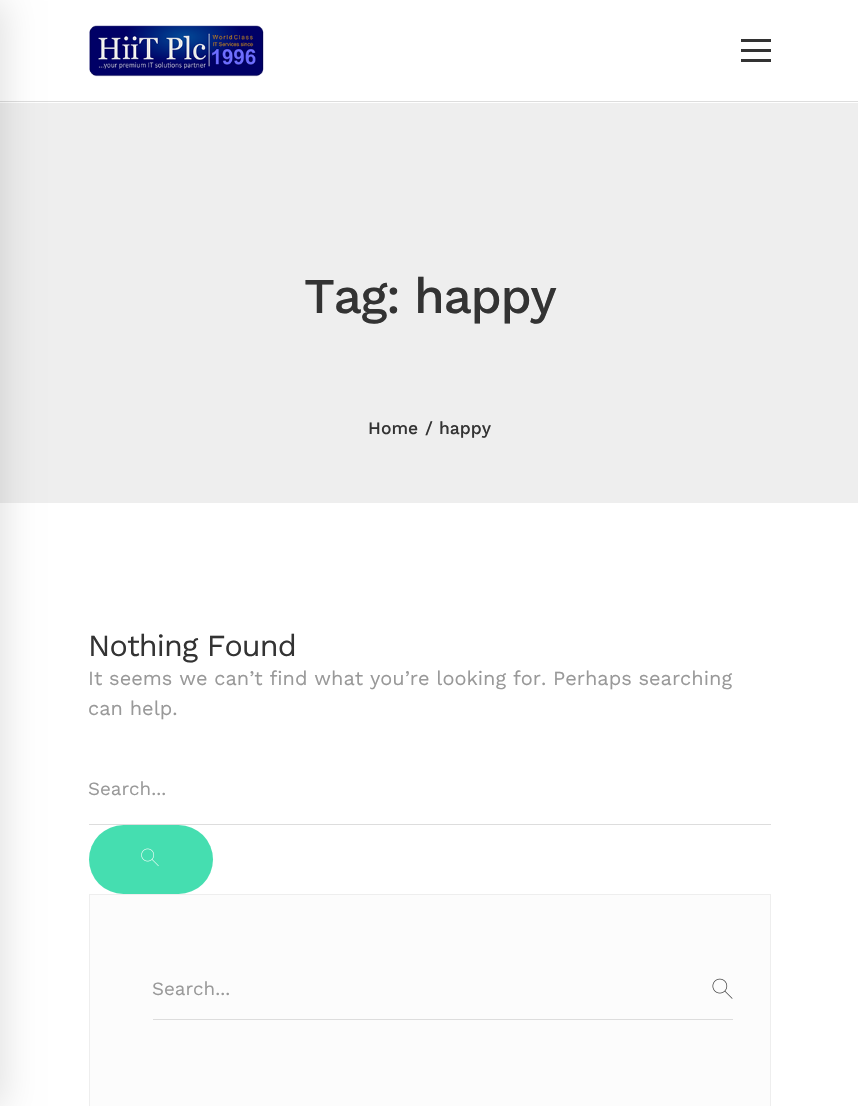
void draw(SkCanvas* canvas) {
    SkPaint paint;
    paint.setAntiAlias(true);
    auto face = [&](const char* family, int weight, float size, bool italic = false) {
        SkFontStyle style(weight, SkFontStyle::kNormal_Width,
            italic ? SkFontStyle::kItalic_Slant : SkFontStyle::kUpright_Slant);
        SkFont result(fontMgr->matchFamilyStyle(family, style), size);
        result.setSubpixel(true);
        return result;
    };
    auto write = [&](const char* s, float x, float y, const SkFont& font, SkColor color) {
        SkPaint ink(SkColor4f::FromColor(color));
        ink.setAntiAlias(true);
        canvas->drawString(s, x, y, font, ink);
    };
    auto writeSpaced = [&](const char* s, float x, float y, const SkFont& font, const SkPaint& ink, float letter, float word) {
        std::vector<SkGlyphID> glyphs(font.countText(s, strlen(s), SkTextEncoding::kUTF8));
        std::vector<float> xs(glyphs.size());
        font.textToGlyphs(s, strlen(s), SkTextEncoding::kUTF8, glyphs);
        font.getXPos(glyphs, xs, x);
        float extra = 0;
        for (size_t i = 0; i < glyphs.size(); i++) {
            xs[i] += extra;
            extra += letter + word * (glyphs[i] == font.unicharToGlyph(' '));
        }
        canvas->drawTextBlob(SkTextBlob::MakeFromPosHGlyphs(glyphs, xs, y, font), 0, 0, ink);
    };
    auto block = [&](float x, float y, float w, float h, SkColor color) {
        SkPaint ink(SkColor4f::FromColor(color));
        ink.setAntiAlias(true);
        canvas->drawRect(SkRect::MakeXYWH(x, y, w, h), ink);
    };
    auto card = [&](float x, float y, float w, float h, float radius, SkColor color) {
        SkPaint ink(SkColor4f::FromColor(color));
        ink.setAntiAlias(true);
        canvas->drawRoundRect(SkRect::MakeXYWH(x, y, w, h), radius, radius, ink);
    };
    auto paste = [&](const char* path, float x, float y, float w, float h) {
        auto image = SkImages::DeferredFromEncodedData(SkData::MakeFromFileName(path));
        canvas->drawImageRect(image, SkRect::MakeXYWH(x, y, w, h), SkSamplingOptions());
    };
    canvas->clear(SK_ColorWHITE);
    block(0, 101, 858, 1, SkColorSetRGB(221, 221, 221));
    block(0, 103, 858, 400, SkColorSetRGB(238, 238, 238));
    paint.setColor(SkColorSetARGB(31, 0, 0, 0));
    paint.setMaskFilter(SkMaskFilter::MakeBlur(kNormal_SkBlurStyle, 18));
    canvas->drawRect(SkRect::MakeXYWH(-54, 1, 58, 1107), paint);
    paint.setMaskFilter(nullptr);
    paste("pic1.png", 89, 25, 175, 52);
    block(741, 49, 30, 3, SkColorSetRGB(51, 51, 51));
    block(741, 39, 30, 3, SkColorSetRGB(51, 51, 51));
    block(741, 59, 30, 3, SkColorSetRGB(51, 51, 51));
    auto kFont1 = face("Work Sans", 500, 50);
    paint.setColor(SkColorSetRGB(51, 51, 51));
    writeSpaced("Tag: happy", 304, 313, kFont1, paint, -1.5f, 0);
    auto kFont2 = face("Work Sans", 500, 17.5f);
    write("Home", 368, 434, kFont2, SkColorSetRGB(51, 51, 51));
    write("/", 425, 434, kFont2, SkColorSetRGB(51, 51, 51));
    write("happy", 439, 434, kFont2, SkColorSetRGB(51, 51, 51));
    auto kFont3 = face("Work Sans", 400, 30.5f);
    writeSpaced("Nothing Found", 88, 656, kFont3, paint, -0.9f, 0);
    auto kFont4 = face("Work Sans", 400, 20);
    write("It seems we can’t find what you’re looking for. Perhaps searching", 88, 685, kFont4, SkColorSetRGB(153, 153, 153));
    write("can help.", 88, 715, kFont4, SkColorSetRGB(153, 153, 153));
    block(89, 824, 682, 1, SkColorSetRGB(221, 221, 221));
    auto kFont5 = face("Work Sans", 400, 18.75f);
    write("Search...", 88, 795, kFont5, SkColorSetRGB(153, 153, 153));
    card(89, 825, 124, 69, 34.5f, SkColorSetRGB(69, 222, 176));
    paste("pic2.png", 141, 848, 18, 19);
    paint.setColor(SkColorSetRGB(252, 252, 252));
    canvas->drawRect(SkRect::MakeXYWH(89.5f, 894.5f, 681, 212), paint);
    paint.setStyle(SkPaint::kStroke_Style);
    paint.setStrokeWidth(1);
    paint.setColor(SkColorSetRGB(238, 238, 238));
    canvas->drawRect(SkRect::MakeXYWH(89.5f, 894.5f, 681, 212), paint);
    block(153, 1019, 580, 1, SkColorSetRGB(221, 221, 221));
    write("Search...", 152, 995, kFont5, SkColorSetRGB(153, 153, 153));
    paste("pic3.png", 712, 978, 21, 21);
}
